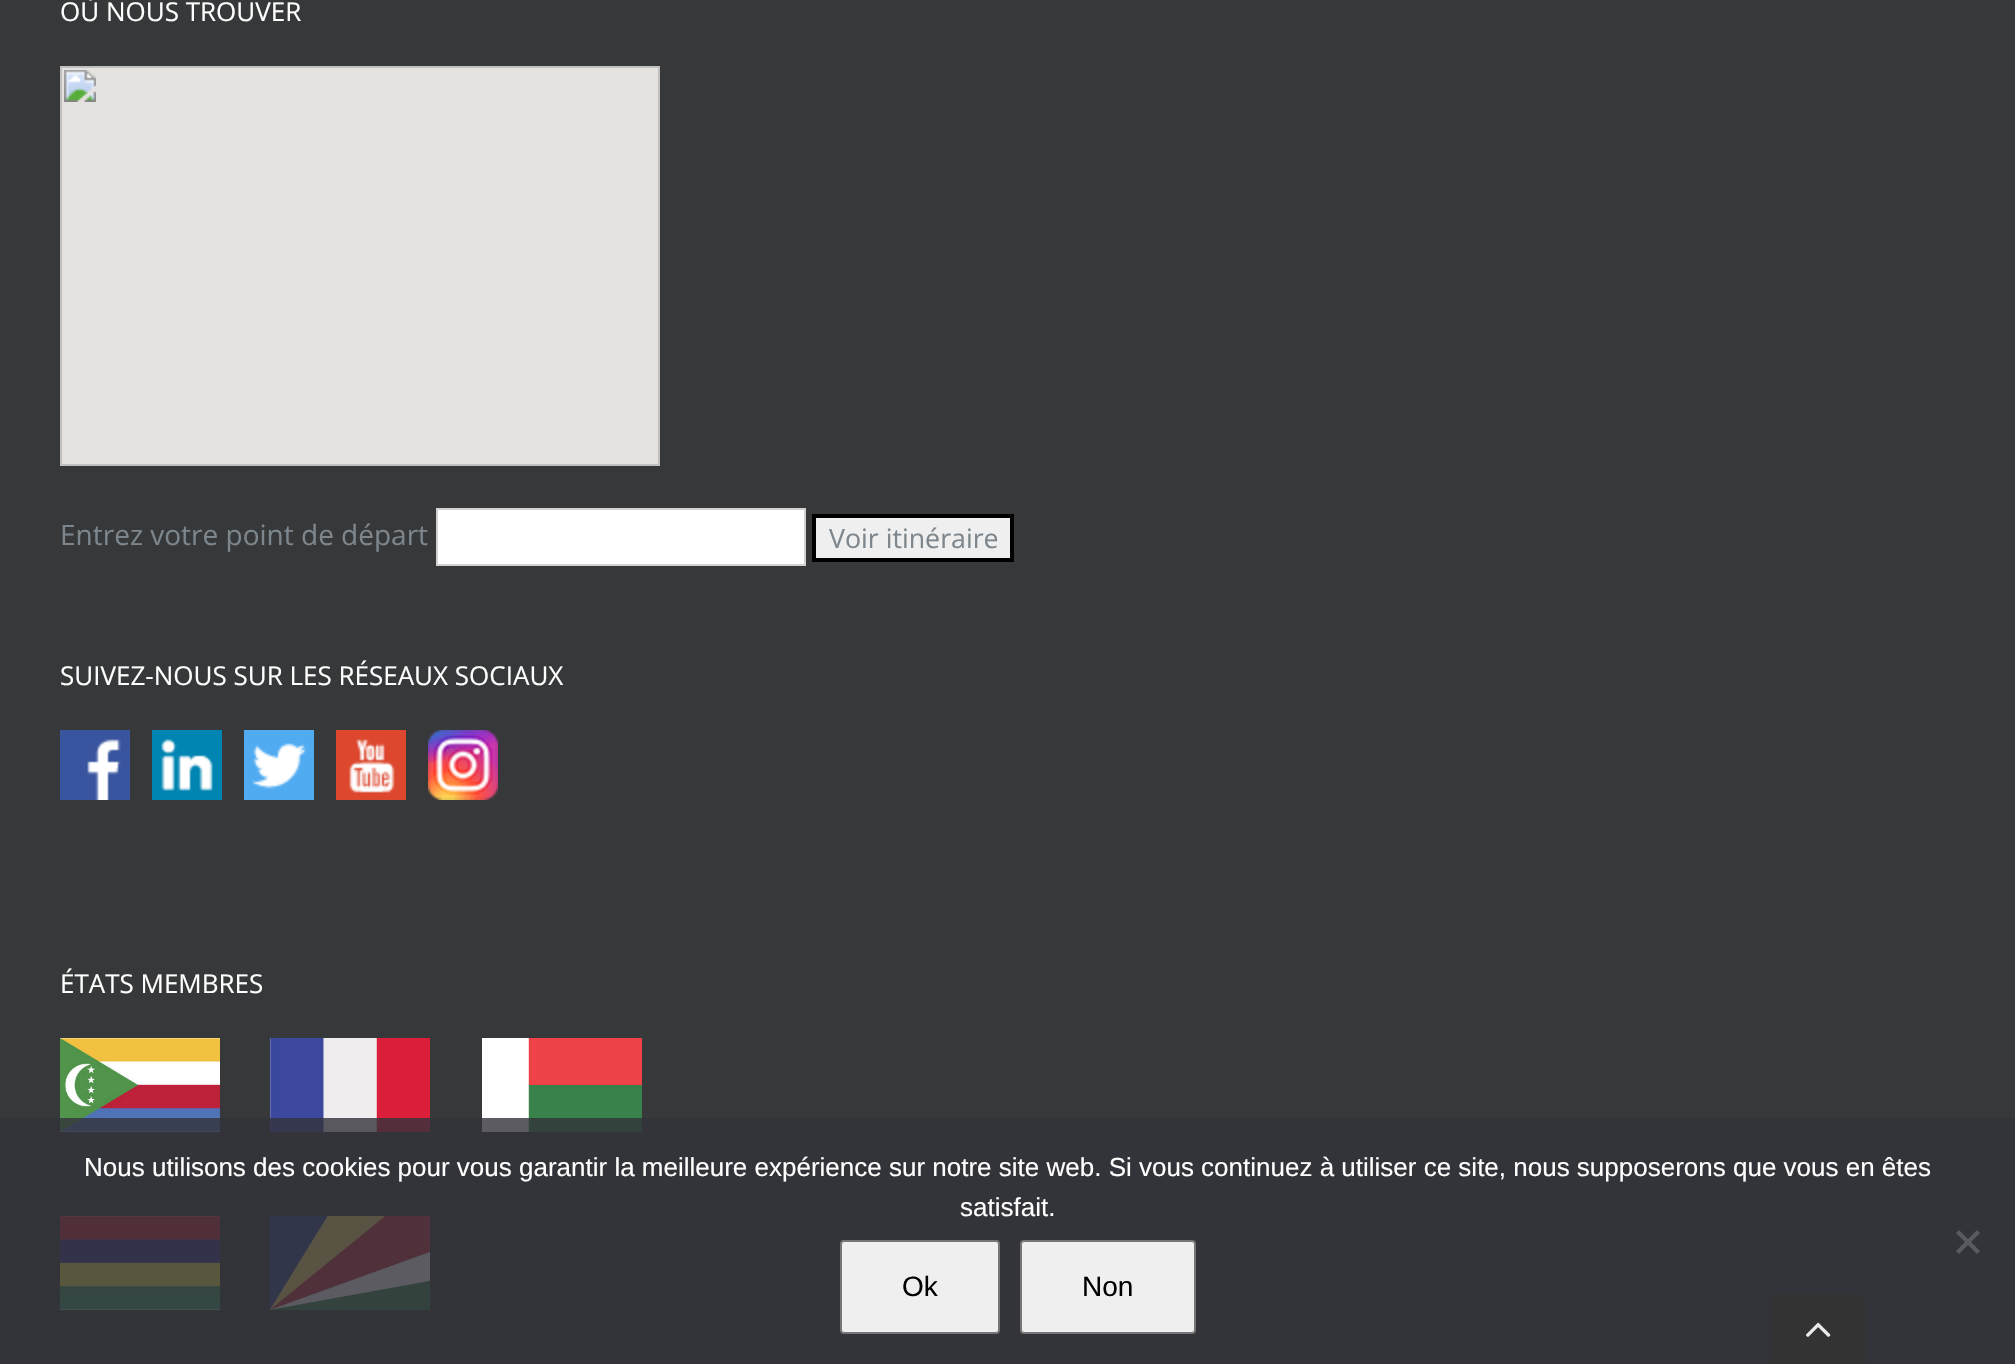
void draw(SkCanvas* canvas) {
    SkPaint paint;
    paint.setAntiAlias(true);
    auto face = [&](const char* family, int weight, float size, bool italic = false) {
        SkFontStyle style(weight, SkFontStyle::kNormal_Width,
            italic ? SkFontStyle::kItalic_Slant : SkFontStyle::kUpright_Slant);
        SkFont result(fontMgr->matchFamilyStyle(family, style), size);
        result.setSubpixel(true);
        return result;
    };
    auto write = [&](const char* s, float x, float y, const SkFont& font, SkColor color) {
        SkPaint ink(SkColor4f::FromColor(color));
        ink.setAntiAlias(true);
        canvas->drawString(s, x, y, font, ink);
    };
    auto block = [&](float x, float y, float w, float h, SkColor color) {
        SkPaint ink(SkColor4f::FromColor(color));
        ink.setAntiAlias(true);
        canvas->drawRect(SkRect::MakeXYWH(x, y, w, h), ink);
    };
    auto paste = [&](const char* path, float x, float y, float w, float h) {
        auto image = SkImages::DeferredFromEncodedData(SkData::MakeFromFileName(path));
        canvas->drawImageRect(image, SkRect::MakeXYWH(x, y, w, h), SkSamplingOptions());
    };
    canvas->clear(SkColorSetRGB(54, 56, 57));
    auto kFont1 = face("Open Sans", 400, 26);
    write("OÙ NOUS TROUVER", 60, 21, kFont1, SK_ColorWHITE);
    paste("pic1.png", 60, 66, 600, 400);
    auto kFont2 = face("Open Sans", 400, 28);
    write("Entrez votre point de départ", 60, 545, kFont2, SkColorSetRGB(125, 134, 140));
    paint.setColor(SK_ColorWHITE);
    canvas->drawRect(SkRect::MakeXYWH(437, 509, 368, 56), paint);
    paint.setStyle(SkPaint::kStroke_Style);
    paint.setStrokeWidth(2);
    paint.setColor(SkColorSetRGB(210, 210, 210));
    canvas->drawRect(SkRect::MakeXYWH(437, 509, 368, 56), paint);
    paint.setStyle(SkPaint::kFill_Style);
    paint.setColor(SkColorSetRGB(239, 239, 239));
    canvas->drawRect(SkRect::MakeXYWH(814, 516, 198, 44), paint);
    paint.setStyle(SkPaint::kStroke_Style);
    paint.setStrokeWidth(4);
    paint.setColor(SK_ColorBLACK);
    canvas->drawRect(SkRect::MakeXYWH(814, 516, 198, 44), paint);
    auto kFont3 = face("Open Sans", 400, 26.75f);
    write("Voir itinéraire", 829, 548, kFont3, SkColorSetRGB(125, 134, 140));
    write("SUIVEZ-NOUS SUR LES RÉSEAUX SOCIAUX", 60, 685, kFont1, SK_ColorWHITE);
    paste("pic2.png", 60, 730, 70, 70);
    paste("pic3.png", 152, 730, 70, 70);
    paste("pic4.png", 244, 730, 70, 70);
    paste("pic5.png", 336, 730, 70, 70);
    paste("pic6.png", 428, 730, 70, 70);
    write("ÉTATS MEMBRES", 60, 993, kFont1, SK_ColorWHITE);
    paste("pic7.png", 60, 1038, 160, 94);
    paste("pic8.png", 270, 1038, 160, 94);
    paste("pic9.png", 482, 1038, 160, 94);
    paste("pic10.png", 60, 1216, 160, 94);
    paste("pic11.png", 270, 1216, 160, 94);
    block(0, 1118, 2015, 246, SkColorSetARGB(204, 50, 50, 58));
    auto kFont4 = face("Liberation Sans", 400, 26);
    write("Nous utilisons des cookies pour vous garantir la meilleure expérience sur notre site web. Si vous continuez à utiliser ce site, nous supposerons que vous en êtes", 84, 1176, kFont4, SK_ColorWHITE);
    write("satisfait.", 960, 1216, kFont4, SK_ColorWHITE);
    paint.setStyle(SkPaint::kFill_Style);
    paint.setColor(SkColorSetRGB(89, 90, 93));
    canvas->drawPath(SkPathBuilder().moveTo(1977, 1230).lineTo(1980, 1233).lineTo(1959, 1254).lineTo(1956, 1251).close().detach(), paint);
    canvas->drawPath(SkPathBuilder().moveTo(1956, 1233).lineTo(1959, 1230).lineTo(1980, 1251).lineTo(1977, 1254).close().detach(), paint);
    paint.setColor(SkColorSetRGB(239, 239, 239));
    canvas->drawRoundRect(SkRect::MakeXYWH(841, 1241, 158, 92), 3, 3, paint);
    paint.setStyle(SkPaint::kStroke_Style);
    paint.setStrokeWidth(2);
    paint.setColor(SkColorSetRGB(118, 118, 118));
    canvas->drawRoundRect(SkRect::MakeXYWH(841, 1241, 158, 92), 3, 3, paint);
    auto kFont5 = face("Liberation Sans", 400, 28);
    write("Ok", 902, 1296, kFont5, SK_ColorBLACK);
    paint.setStyle(SkPaint::kFill_Style);
    paint.setColor(SkColorSetRGB(239, 239, 239));
    canvas->drawRoundRect(SkRect::MakeXYWH(1021, 1241, 174, 92), 3, 3, paint);
    paint.setStyle(SkPaint::kStroke_Style);
    paint.setColor(SkColorSetRGB(118, 118, 118));
    canvas->drawRoundRect(SkRect::MakeXYWH(1021, 1241, 174, 92), 3, 3, paint);
    write("Non", 1082, 1296, kFont5, SK_ColorBLACK);
    paint.setStyle(SkPaint::kFill_Style);
    paint.setColor(SkColorSetRGB(51, 51, 52));
    canvas->drawPath(SkPathBuilder().moveTo(1778, 1294).lineTo(1858, 1294).cubicTo(1862.5f, 1294, 1866, 1297.5f, 1866, 1302).lineTo(1866, 1364).lineTo(1770, 1364).lineTo(1770, 1302).cubicTo(1770, 1297.5f, 1773.5f, 1294, 1778, 1294).close().detach(), paint);
    paste("pic12.png", 1806, 1322, 25, 15);
}
